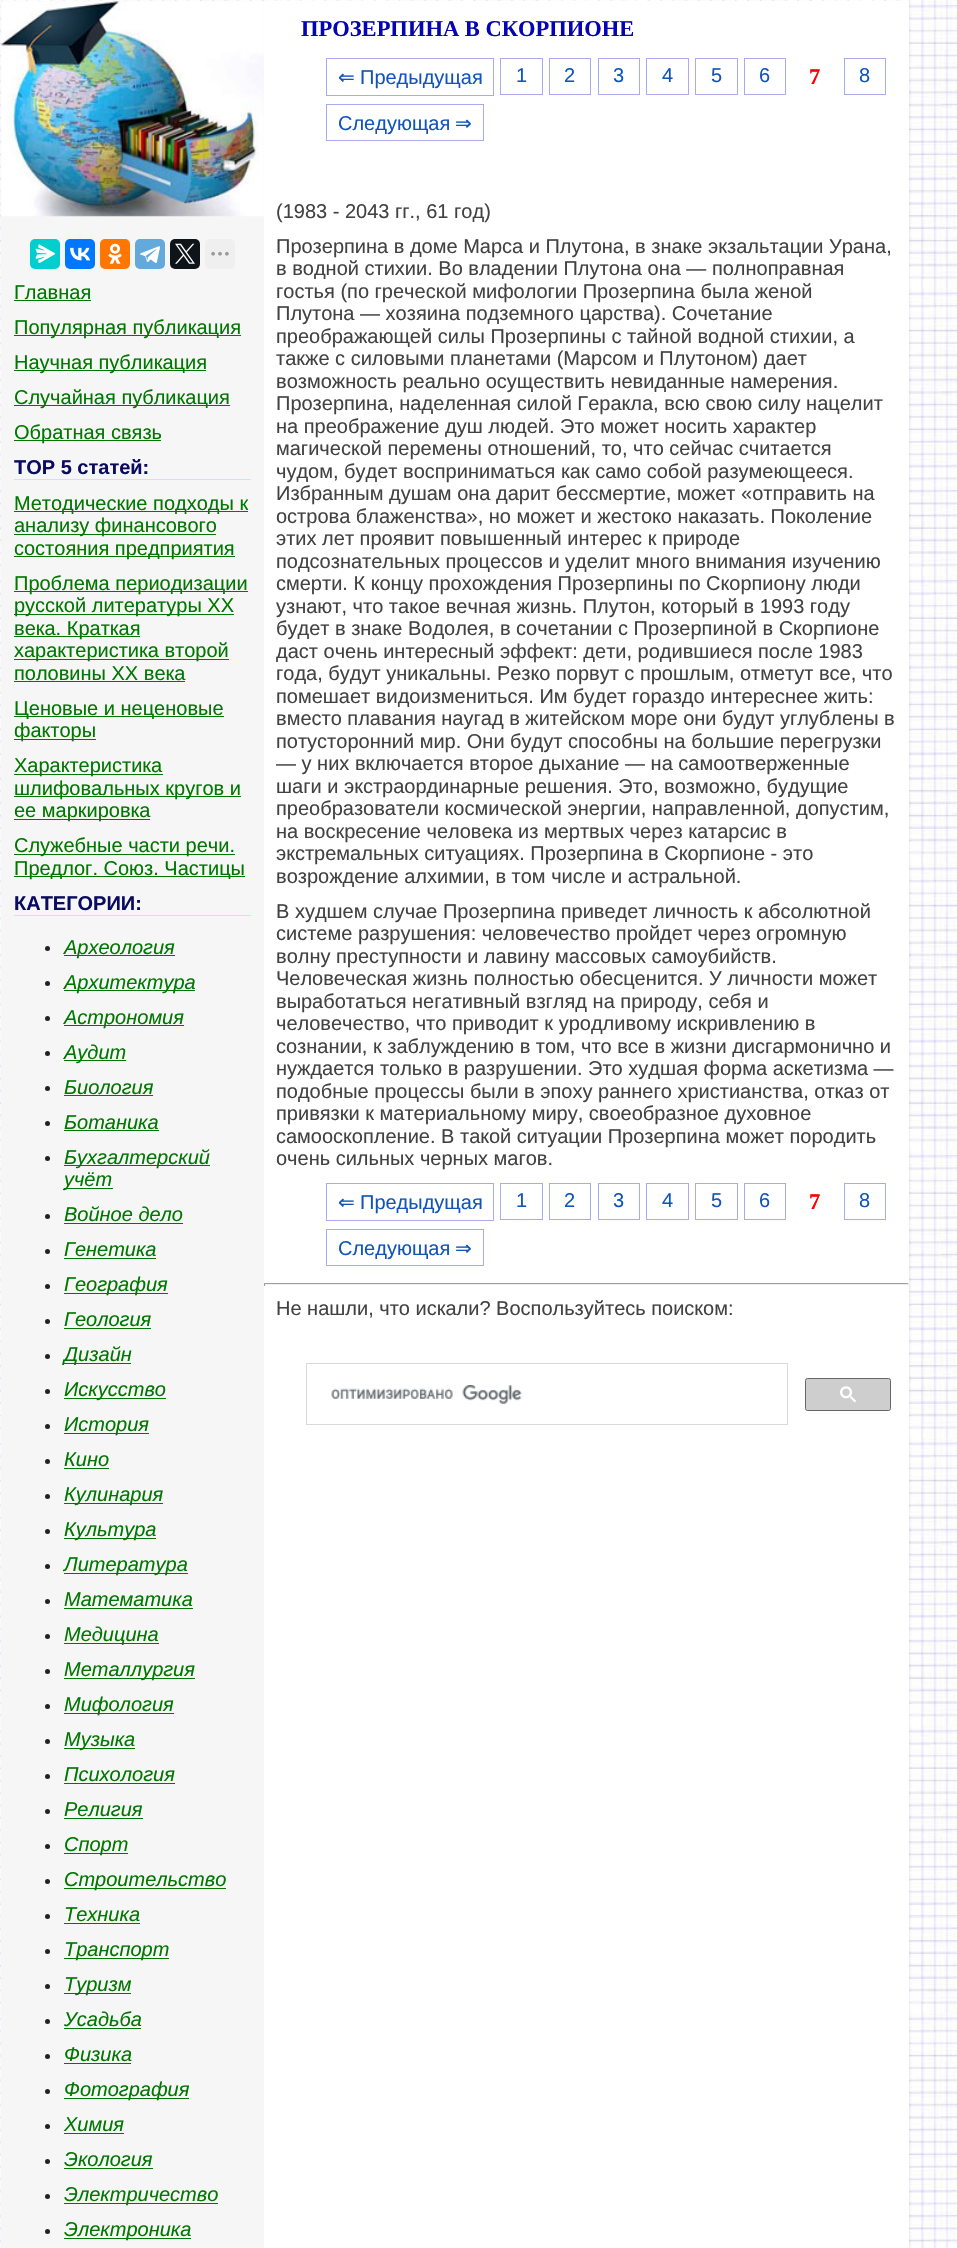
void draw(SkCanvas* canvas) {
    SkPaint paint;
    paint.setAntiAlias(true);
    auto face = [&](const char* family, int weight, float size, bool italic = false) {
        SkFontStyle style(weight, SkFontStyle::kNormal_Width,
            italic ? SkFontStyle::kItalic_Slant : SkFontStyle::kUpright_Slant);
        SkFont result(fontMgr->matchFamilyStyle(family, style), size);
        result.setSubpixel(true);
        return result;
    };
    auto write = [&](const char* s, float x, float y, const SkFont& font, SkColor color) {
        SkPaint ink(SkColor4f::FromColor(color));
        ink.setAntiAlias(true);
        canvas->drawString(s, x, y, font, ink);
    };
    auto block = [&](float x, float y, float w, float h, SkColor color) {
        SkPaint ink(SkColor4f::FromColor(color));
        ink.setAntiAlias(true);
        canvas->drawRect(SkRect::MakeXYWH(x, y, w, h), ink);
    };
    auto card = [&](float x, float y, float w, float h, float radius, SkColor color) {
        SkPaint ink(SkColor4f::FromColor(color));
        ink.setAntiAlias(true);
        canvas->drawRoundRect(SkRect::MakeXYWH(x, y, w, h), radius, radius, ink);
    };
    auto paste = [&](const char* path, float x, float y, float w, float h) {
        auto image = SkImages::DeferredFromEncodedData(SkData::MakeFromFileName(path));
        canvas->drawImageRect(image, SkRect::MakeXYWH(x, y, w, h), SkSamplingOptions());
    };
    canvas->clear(SK_ColorWHITE);
    paste("pic1.png", 0, 0, 957, 2248);
    block(1, 1, 263, 2247, SkColorSetRGB(246, 246, 246));
    paste("pic2.png", 1, 1, 263, 216);
    card(30, 239, 30, 30, 5, SkColorSetRGB(3, 206, 206));
    paste("pic3.png", 35, 244, 20, 19);
    card(65, 239, 30, 30, 5, SkColorSetRGB(0, 119, 255));
    paste("pic4.png", 70, 247, 20, 14);
    card(100, 239, 30, 30, 5, SkColorSetRGB(255, 119, 0));
    paste("pic5.png", 108, 243, 14, 21);
    card(135, 239, 30, 30, 5, SkColorSetRGB(100, 169, 220));
    paste("pic6.png", 140, 246, 20, 17);
    card(170, 239, 30, 30, 5, SkColorSetRGB(15, 20, 25));
    paste("pic7.png", 175, 243, 20, 21);
    card(205, 239, 30, 30, 5, SkColorSetRGB(239, 239, 239));
    paste("pic8.png", 211, 251, 18, 5);
    auto kFont1 = face("Liberation Sans", 400, 20);
    write("Главная", 14, 299, kFont1, SkColorSetRGB(0, 119, 0));
    block(14, 300, 77, 1, SkColorSetRGB(0, 119, 0));
    block(14, 335, 227, 1, SkColorSetRGB(0, 119, 0));
    write("Популярная публикация", 14, 334, kFont1, SkColorSetRGB(0, 119, 0));
    block(14, 370, 192, 1, SkColorSetRGB(0, 119, 0));
    write("Научная публикация", 14, 369, kFont1, SkColorSetRGB(0, 119, 0));
    block(14, 405, 216, 1, SkColorSetRGB(0, 119, 0));
    write("Случайная публикация", 14, 404, kFont1, SkColorSetRGB(0, 119, 0));
    block(14, 440, 147, 1, SkColorSetRGB(0, 119, 0));
    write("Обратная связь", 14, 439, kFont1, SkColorSetRGB(0, 119, 0));
    block(14, 479, 237, 1, SkColorSetRGB(169, 245, 242));
    auto kFont2 = face("Liberation Sans", 700, 20);
    write("ТОР 5 статей:", 14, 474, kFont2, SkColorSetRGB(11, 11, 97));
    block(14, 511, 234, 1, SkColorSetRGB(0, 119, 0));
    write("Методические подходы к", 14, 510, kFont1, SkColorSetRGB(0, 119, 0));
    block(14, 534, 202, 1, SkColorSetRGB(0, 119, 0));
    write("анализу финансового", 14, 532, kFont1, SkColorSetRGB(0, 119, 0));
    block(14, 556, 221, 1, SkColorSetRGB(0, 119, 0));
    write("состояния предприятия", 14, 555, kFont1, SkColorSetRGB(0, 119, 0));
    block(14, 591, 234, 1, SkColorSetRGB(0, 119, 0));
    write("Проблема периодизации", 14, 590, kFont1, SkColorSetRGB(0, 119, 0));
    block(14, 614, 220, 1, SkColorSetRGB(0, 119, 0));
    write("русской литературы ХХ", 14, 612, kFont1, SkColorSetRGB(0, 119, 0));
    block(14, 636, 126, 1, SkColorSetRGB(0, 119, 0));
    write("века. Краткая", 14, 635, kFont1, SkColorSetRGB(0, 119, 0));
    block(14, 659, 215, 1, SkColorSetRGB(0, 119, 0));
    write("характеристика второй", 14, 657, kFont1, SkColorSetRGB(0, 119, 0));
    write("половины ХХ века", 14, 680, kFont1, SkColorSetRGB(0, 119, 0));
    block(14, 681, 171, 1, SkColorSetRGB(0, 119, 0));
    block(14, 716, 210, 1, SkColorSetRGB(0, 119, 0));
    write("Ценовые и неценовые", 14, 715, kFont1, SkColorSetRGB(0, 119, 0));
    block(14, 739, 82, 1, SkColorSetRGB(0, 119, 0));
    write("факторы", 14, 737, kFont1, SkColorSetRGB(0, 119, 0));
    block(14, 774, 149, 1, SkColorSetRGB(0, 119, 0));
    write("Характеристика", 14, 772, kFont1, SkColorSetRGB(0, 119, 0));
    block(14, 796, 227, 1, SkColorSetRGB(0, 119, 0));
    write("шлифовальных кругов и", 14, 795, kFont1, SkColorSetRGB(0, 119, 0));
    block(14, 819, 136, 1, SkColorSetRGB(0, 119, 0));
    write("ее маркировка", 14, 817, kFont1, SkColorSetRGB(0, 119, 0));
    block(14, 854, 221, 1, SkColorSetRGB(0, 119, 0));
    write("Служебные части речи.", 14, 852, kFont1, SkColorSetRGB(0, 119, 0));
    block(14, 876, 231, 1, SkColorSetRGB(0, 119, 0));
    write("Предлог. Союз. Частицы", 14, 875, kFont1, SkColorSetRGB(0, 119, 0));
    block(14, 915, 237, 1, SkColorSetRGB(169, 245, 242));
    write("КАТЕГОРИИ:", 14, 910, kFont2, SkColorSetRGB(11, 11, 97));
    paint.setColor(SkColorSetRGB(34, 34, 34));
    canvas->drawCircle(47.5f, 948.5f, 2.5f, paint);
    block(64, 955, 111, 1, SkColorSetRGB(0, 119, 0));
    auto kFont3 = face("Liberation Sans", 400, 20, true);
    write("Археология", 64, 954, kFont3, SkColorSetRGB(0, 119, 0));
    canvas->drawCircle(47.5f, 983.5f, 2.5f, paint);
    block(64, 990, 131, 1, SkColorSetRGB(0, 119, 0));
    write("Архитектура", 64, 989, kFont3, SkColorSetRGB(0, 119, 0));
    canvas->drawCircle(47.5f, 1018.5f, 2.5f, paint);
    block(64, 1025, 120, 1, SkColorSetRGB(0, 119, 0));
    write("Астрономия", 64, 1024, kFont3, SkColorSetRGB(0, 119, 0));
    canvas->drawCircle(47.5f, 1053.5f, 2.5f, paint);
    block(64, 1060, 62, 1, SkColorSetRGB(0, 119, 0));
    write("Аудит", 64, 1059, kFont3, SkColorSetRGB(0, 119, 0));
    canvas->drawCircle(47.5f, 1088.5f, 2.5f, paint);
    write("Биология", 64, 1094, kFont3, SkColorSetRGB(0, 119, 0));
    block(64, 1095, 89, 1, SkColorSetRGB(0, 119, 0));
    canvas->drawCircle(47.5f, 1123.5f, 2.5f, paint);
    write("Ботаника", 64, 1129, kFont3, SkColorSetRGB(0, 119, 0));
    block(64, 1130, 95, 1, SkColorSetRGB(0, 119, 0));
    canvas->drawCircle(47.5f, 1158.5f, 2.5f, paint);
    block(64, 1165, 146, 1, SkColorSetRGB(0, 119, 0));
    write("Бухгалтерский", 64, 1164, kFont3, SkColorSetRGB(0, 119, 0));
    block(64, 1188, 49, 1, SkColorSetRGB(0, 119, 0));
    write("учёт", 64, 1186, kFont3, SkColorSetRGB(0, 119, 0));
    canvas->drawCircle(47.5f, 1216.5f, 2.5f, paint);
    write("Войное дело", 64, 1221, kFont3, SkColorSetRGB(0, 119, 0));
    block(64, 1223, 119, 1, SkColorSetRGB(0, 119, 0));
    canvas->drawCircle(47.5f, 1251.5f, 2.5f, paint);
    write("Генетика", 64, 1256, kFont3, SkColorSetRGB(0, 119, 0));
    block(64, 1258, 92, 1, SkColorSetRGB(0, 119, 0));
    canvas->drawCircle(47.5f, 1286.5f, 2.5f, paint);
    block(64, 1293, 104, 1, SkColorSetRGB(0, 119, 0));
    write("География", 64, 1291, kFont3, SkColorSetRGB(0, 119, 0));
    canvas->drawCircle(47.5f, 1321.5f, 2.5f, paint);
    write("Геология", 64, 1326, kFont3, SkColorSetRGB(0, 119, 0));
    block(64, 1328, 87, 1, SkColorSetRGB(0, 119, 0));
    canvas->drawCircle(47.5f, 1356.5f, 2.5f, paint);
    block(64, 1363, 67, 1, SkColorSetRGB(0, 119, 0));
    write("Дизайн", 64, 1361, kFont3, SkColorSetRGB(0, 119, 0));
    canvas->drawCircle(47.5f, 1391.5f, 2.5f, paint);
    block(64, 1398, 102, 1, SkColorSetRGB(0, 119, 0));
    write("Искусство", 64, 1396, kFont3, SkColorSetRGB(0, 119, 0));
    canvas->drawCircle(47.5f, 1426.5f, 2.5f, paint);
    block(64, 1433, 85, 1, SkColorSetRGB(0, 119, 0));
    write("История", 64, 1431, kFont3, SkColorSetRGB(0, 119, 0));
    canvas->drawCircle(47.5f, 1461.5f, 2.5f, paint);
    write("Кино", 64, 1466, kFont3, SkColorSetRGB(0, 119, 0));
    block(64, 1468, 45, 1, SkColorSetRGB(0, 119, 0));
    canvas->drawCircle(47.5f, 1496.5f, 2.5f, paint);
    block(64, 1503, 99, 1, SkColorSetRGB(0, 119, 0));
    write("Кулинария", 64, 1501, kFont3, SkColorSetRGB(0, 119, 0));
    canvas->drawCircle(47.5f, 1531.5f, 2.5f, paint);
    block(64, 1538, 92, 1, SkColorSetRGB(0, 119, 0));
    write("Культура", 64, 1536, kFont3, SkColorSetRGB(0, 119, 0));
    canvas->drawCircle(47.5f, 1566.5f, 2.5f, paint);
    block(64, 1573, 124, 1, SkColorSetRGB(0, 119, 0));
    write("Литература", 64, 1571, kFont3, SkColorSetRGB(0, 119, 0));
    canvas->drawCircle(47.5f, 1601.5f, 2.5f, paint);
    write("Математика", 64, 1606, kFont3, SkColorSetRGB(0, 119, 0));
    block(64, 1608, 129, 1, SkColorSetRGB(0, 119, 0));
    canvas->drawCircle(47.5f, 1636.5f, 2.5f, paint);
    block(64, 1643, 95, 1, SkColorSetRGB(0, 119, 0));
    write("Медицина", 64, 1641, kFont3, SkColorSetRGB(0, 119, 0));
    canvas->drawCircle(47.5f, 1671.5f, 2.5f, paint);
    block(64, 1678, 131, 1, SkColorSetRGB(0, 119, 0));
    write("Металлургия", 64, 1676, kFont3, SkColorSetRGB(0, 119, 0));
    canvas->drawCircle(47.5f, 1706.5f, 2.5f, paint);
    block(64, 1713, 110, 1, SkColorSetRGB(0, 119, 0));
    write("Мифология", 64, 1711, kFont3, SkColorSetRGB(0, 119, 0));
    canvas->drawCircle(47.5f, 1741.5f, 2.5f, paint);
    block(64, 1748, 71, 1, SkColorSetRGB(0, 119, 0));
    write("Музыка", 64, 1746, kFont3, SkColorSetRGB(0, 119, 0));
    canvas->drawCircle(47.5f, 1776.5f, 2.5f, paint);
    write("Психология", 64, 1781, kFont3, SkColorSetRGB(0, 119, 0));
    block(64, 1783, 111, 1, SkColorSetRGB(0, 119, 0));
    canvas->drawCircle(47.5f, 1811.5f, 2.5f, paint);
    write("Религия", 64, 1816, kFont3, SkColorSetRGB(0, 119, 0));
    block(64, 1818, 79, 1, SkColorSetRGB(0, 119, 0));
    canvas->drawCircle(47.5f, 1846.5f, 2.5f, paint);
    block(64, 1853, 64, 1, SkColorSetRGB(0, 119, 0));
    write("Спорт", 64, 1851, kFont3, SkColorSetRGB(0, 119, 0));
    canvas->drawCircle(47.5f, 1881.5f, 2.5f, paint);
    block(64, 1888, 162, 1, SkColorSetRGB(0, 119, 0));
    write("Строительство", 64, 1886, kFont3, SkColorSetRGB(0, 119, 0));
    canvas->drawCircle(47.5f, 1916.5f, 2.5f, paint);
    write("Техника", 64, 1921, kFont3, SkColorSetRGB(0, 119, 0));
    block(64, 1923, 76, 1, SkColorSetRGB(0, 119, 0));
    canvas->drawCircle(47.5f, 1951.5f, 2.5f, paint);
    block(64, 1958, 105, 1, SkColorSetRGB(0, 119, 0));
    write("Транспорт", 64, 1956, kFont3, SkColorSetRGB(0, 119, 0));
    canvas->drawCircle(47.5f, 1986.5f, 2.5f, paint);
    block(64, 1993, 67, 1, SkColorSetRGB(0, 119, 0));
    write("Туризм", 64, 1991, kFont3, SkColorSetRGB(0, 119, 0));
    canvas->drawCircle(47.5f, 2021.5f, 2.5f, paint);
    write("Усадьба", 64, 2026, kFont3, SkColorSetRGB(0, 119, 0));
    block(64, 2028, 77, 1, SkColorSetRGB(0, 119, 0));
    canvas->drawCircle(47.5f, 2056.5f, 2.5f, paint);
    write("Физика", 64, 2061, kFont3, SkColorSetRGB(0, 119, 0));
    block(64, 2063, 67, 1, SkColorSetRGB(0, 119, 0));
    canvas->drawCircle(47.5f, 2091.5f, 2.5f, paint);
    block(64, 2098, 125, 1, SkColorSetRGB(0, 119, 0));
    write("Фотография", 64, 2096, kFont3, SkColorSetRGB(0, 119, 0));
    canvas->drawCircle(47.5f, 2126.5f, 2.5f, paint);
    write("Химия", 64, 2131, kFont3, SkColorSetRGB(0, 119, 0));
    block(64, 2133, 60, 1, SkColorSetRGB(0, 119, 0));
    canvas->drawCircle(47.5f, 2161.5f, 2.5f, paint);
    write("Экология", 64, 2166, kFont3, SkColorSetRGB(0, 119, 0));
    block(64, 2168, 89, 1, SkColorSetRGB(0, 119, 0));
    canvas->drawCircle(47.5f, 2196.5f, 2.5f, paint);
    block(64, 2203, 154, 1, SkColorSetRGB(0, 119, 0));
    write("Электричество", 64, 2201, kFont3, SkColorSetRGB(0, 119, 0));
    canvas->drawCircle(47.5f, 2231.5f, 2.5f, paint);
    block(64, 2238, 127, 1, SkColorSetRGB(0, 119, 0));
    write("Электроника", 64, 2236, kFont3, SkColorSetRGB(0, 119, 0));
    block(264, 1, 645, 2247, SK_ColorWHITE);
    auto kFont4 = face("Liberation Serif", 700, 22.5f);
    write("ПРОЗЕРПИНА В СКОРПИОНЕ", 301, 36, kFont4, SkColorSetRGB(4, 4, 180));
    paint.setStyle(SkPaint::kStroke_Style);
    paint.setStrokeWidth(1);
    paint.setColor(SkColorSetRGB(170, 170, 238));
    canvas->drawRect(SkRect::MakeXYWH(326.5f, 58.5f, 167, 37), paint);
    auto kFont5 = face("DejaVu Sans", 400, 20);
    write("⇐", 338, 84, kFont5, SkColorSetRGB(17, 85, 187));
    write("Предыдущая", 360, 84, kFont1, SkColorSetRGB(17, 85, 187));
    canvas->drawRect(SkRect::MakeXYWH(500.5f, 58.5f, 42, 36), paint);
    write("1", 516, 82, kFont1, SkColorSetRGB(17, 85, 187));
    canvas->drawRect(SkRect::MakeXYWH(549.5f, 58.5f, 41, 36), paint);
    write("2", 564, 82, kFont1, SkColorSetRGB(17, 85, 187));
    canvas->drawRect(SkRect::MakeXYWH(598.5f, 58.5f, 41, 36), paint);
    write("3", 613, 82, kFont1, SkColorSetRGB(17, 85, 187));
    canvas->drawRect(SkRect::MakeXYWH(646.5f, 58.5f, 42, 36), paint);
    write("4", 662, 82, kFont1, SkColorSetRGB(17, 85, 187));
    canvas->drawRect(SkRect::MakeXYWH(695.5f, 58.5f, 42, 36), paint);
    write("5", 711, 82, kFont1, SkColorSetRGB(17, 85, 187));
    canvas->drawRect(SkRect::MakeXYWH(744.5f, 58.5f, 41, 36), paint);
    write("6", 759, 82, kFont1, SkColorSetRGB(17, 85, 187));
    write("7", 809, 84, kFont4, SkColorSetRGB(255, 0, 0));
    canvas->drawRect(SkRect::MakeXYWH(844.5f, 58.5f, 41, 36), paint);
    write("8", 859, 82, kFont1, SkColorSetRGB(17, 85, 187));
    canvas->drawRect(SkRect::MakeXYWH(326.5f, 104.5f, 157, 36), paint);
    write("Следующая", 338, 130, kFont1, SkColorSetRGB(17, 85, 187));
    write("⇒", 455, 130, kFont5, SkColorSetRGB(17, 85, 187));
    write("(1983 - 2043 гг., 61 год)", 276, 218, kFont1, SkColorSetRGB(66, 66, 66));
    write("Прозерпина в доме Марса и Плутона, в знаке экзальтации Урана,", 276, 253, kFont1, SkColorSetRGB(66, 66, 66));
    write("в водной стихии. Во владении Плутона она — полноправная", 276, 275, kFont1, SkColorSetRGB(66, 66, 66));
    write("гостья (по греческой мифологии Прозерпина была женой", 276, 298, kFont1, SkColorSetRGB(66, 66, 66));
    write("Плутона — хозяина подземного царства). Сочетание", 276, 320, kFont1, SkColorSetRGB(66, 66, 66));
    write("преображающей силы Прозерпины с тайной водной стихии, а", 276, 343, kFont1, SkColorSetRGB(66, 66, 66));
    write("также с силовыми планетами (Марсом и Плутоном) дает", 276, 365, kFont1, SkColorSetRGB(66, 66, 66));
    write("возможность реально осуществить невиданные намерения.", 276, 388, kFont1, SkColorSetRGB(66, 66, 66));
    write("Прозерпина, наделенная силой Геракла, всю свою силу нацелит", 276, 410, kFont1, SkColorSetRGB(66, 66, 66));
    write("на преображение душ людей. Это может носить характер", 276, 433, kFont1, SkColorSetRGB(66, 66, 66));
    write("магической перемены отношений, то, что сейчас считается", 276, 455, kFont1, SkColorSetRGB(66, 66, 66));
    write("чудом, будет восприниматься как само собой разумеющееся.", 276, 478, kFont1, SkColorSetRGB(66, 66, 66));
    write("Избранным душам она дарит бессмертие, может «отправить на", 276, 500, kFont1, SkColorSetRGB(66, 66, 66));
    write("острова блаженства», но может и жестоко наказать. Поколение", 276, 523, kFont1, SkColorSetRGB(66, 66, 66));
    write("этих лет проявит повышенный интерес к природе", 276, 545, kFont1, SkColorSetRGB(66, 66, 66));
    write("подсознательных процессов и уделит много внимания изучению", 276, 568, kFont1, SkColorSetRGB(66, 66, 66));
    write("смерти. К концу прохождения Прозерпины по Скорпиону люди", 276, 590, kFont1, SkColorSetRGB(66, 66, 66));
    write("узнают, что такое вечная жизнь. Плутон, который в 1993 году", 276, 613, kFont1, SkColorSetRGB(66, 66, 66));
    write("будет в знаке Водолея, в сочетании с Прозерпиной в Скорпионе", 276, 635, kFont1, SkColorSetRGB(66, 66, 66));
    write("даст очень интересный эффект: дети, родившиеся после 1983", 276, 658, kFont1, SkColorSetRGB(66, 66, 66));
    write("года, будут уникальны. Резко порвут с прошлым, отметут все, что", 276, 680, kFont1, SkColorSetRGB(66, 66, 66));
    write("помешает видоизмениться. Им будет гораздо интереснее жить:", 276, 703, kFont1, SkColorSetRGB(66, 66, 66));
    write("вместо плавания наугад в житейском море они будут углублены в", 276, 725, kFont1, SkColorSetRGB(66, 66, 66));
    write("потусторонний мир. Они будут способны на большие перегрузки", 276, 748, kFont1, SkColorSetRGB(66, 66, 66));
    write("— у них включается второе дыхание — на самоотверженные", 276, 770, kFont1, SkColorSetRGB(66, 66, 66));
    write("шаги и экстраординарные решения. Это, возможно, будущие", 276, 793, kFont1, SkColorSetRGB(66, 66, 66));
    write("преобразователи космической энергии, направленной, допустим,", 276, 815, kFont1, SkColorSetRGB(66, 66, 66));
    write("на воскресение человека из мертвых через катарсис в", 276, 838, kFont1, SkColorSetRGB(66, 66, 66));
    write("экстремальных ситуациях. Прозерпина в Скорпионе - это", 276, 860, kFont1, SkColorSetRGB(66, 66, 66));
    write("возрождение алхимии, в том числе и астральной.", 276, 883, kFont1, SkColorSetRGB(66, 66, 66));
    write("В худшем случае Прозерпина приведет личность к абсолютной", 276, 918, kFont1, SkColorSetRGB(66, 66, 66));
    write("системе разрушения: человечество пройдет через огромную", 276, 940, kFont1, SkColorSetRGB(66, 66, 66));
    write("волну преступности и лавину массовых самоубийств.", 276, 963, kFont1, SkColorSetRGB(66, 66, 66));
    write("Человеческая жизнь полностью обесценится. У личности может", 276, 985, kFont1, SkColorSetRGB(66, 66, 66));
    write("выработаться негативный взгляд на природу, себя и", 276, 1008, kFont1, SkColorSetRGB(66, 66, 66));
    write("человечество, что приводит к уродливому искривлению в", 276, 1030, kFont1, SkColorSetRGB(66, 66, 66));
    write("сознании, к заблуждению в том, что все в жизни дисгармонично и", 276, 1053, kFont1, SkColorSetRGB(66, 66, 66));
    write("нуждается только в разрушении. Это худшая форма аскетизма —", 276, 1075, kFont1, SkColorSetRGB(66, 66, 66));
    write("подобные процессы были в эпоху раннего христианства, отказ от", 276, 1098, kFont1, SkColorSetRGB(66, 66, 66));
    write("привязки к материальному миру, своеобразное духовное", 276, 1120, kFont1, SkColorSetRGB(66, 66, 66));
    write("самооскопление. В такой ситуации Прозерпина может породить", 276, 1143, kFont1, SkColorSetRGB(66, 66, 66));
    write("очень сильных черных магов.", 276, 1165, kFont1, SkColorSetRGB(66, 66, 66));
    canvas->drawRect(SkRect::MakeXYWH(326.5f, 1183.5f, 167, 37), paint);
    write("⇐", 338, 1209, kFont5, SkColorSetRGB(17, 85, 187));
    write("Предыдущая", 360, 1209, kFont1, SkColorSetRGB(17, 85, 187));
    canvas->drawRect(SkRect::MakeXYWH(500.5f, 1183.5f, 42, 36), paint);
    write("1", 516, 1207, kFont1, SkColorSetRGB(17, 85, 187));
    canvas->drawRect(SkRect::MakeXYWH(549.5f, 1183.5f, 41, 36), paint);
    write("2", 564, 1207, kFont1, SkColorSetRGB(17, 85, 187));
    canvas->drawRect(SkRect::MakeXYWH(598.5f, 1183.5f, 41, 36), paint);
    write("3", 613, 1207, kFont1, SkColorSetRGB(17, 85, 187));
    canvas->drawRect(SkRect::MakeXYWH(646.5f, 1183.5f, 42, 36), paint);
    write("4", 662, 1207, kFont1, SkColorSetRGB(17, 85, 187));
    canvas->drawRect(SkRect::MakeXYWH(695.5f, 1183.5f, 42, 36), paint);
    write("5", 711, 1207, kFont1, SkColorSetRGB(17, 85, 187));
    canvas->drawRect(SkRect::MakeXYWH(744.5f, 1183.5f, 41, 36), paint);
    write("6", 759, 1207, kFont1, SkColorSetRGB(17, 85, 187));
    write("7", 809, 1209, kFont4, SkColorSetRGB(255, 0, 0));
    canvas->drawRect(SkRect::MakeXYWH(844.5f, 1183.5f, 41, 36), paint);
    write("8", 859, 1207, kFont1, SkColorSetRGB(17, 85, 187));
    canvas->drawRect(SkRect::MakeXYWH(326.5f, 1229.5f, 157, 36), paint);
    write("Следующая", 338, 1255, kFont1, SkColorSetRGB(17, 85, 187));
    write("⇒", 455, 1255, kFont5, SkColorSetRGB(17, 85, 187));
    block(264, 1283, 645, 1, SkColorSetRGB(159, 159, 159));
    block(908, 1283, 1, 3, SkColorSetRGB(238, 238, 238));
    block(264, 1284, 645, 1, SkColorSetRGB(238, 238, 238));
    block(264, 1283, 1, 3, SkColorSetRGB(159, 159, 159));
    write("Не нашли, что искали? Воспользуйтесь поиском:", 276, 1315, kFont1, SkColorSetRGB(66, 66, 66));
    paint.setColor(SkColorSetRGB(217, 217, 217));
    canvas->drawRect(SkRect::MakeXYWH(306.5f, 1363.5f, 481, 61), paint);
    paste("pic9.png", 331, 1385, 191, 19);
    paint.setStyle(SkPaint::kFill_Style);
    paint.setColor(SkColorSetRGB(206, 206, 206));
    canvas->drawRoundRect(SkRect::MakeXYWH(805.5f, 1378.5f, 85, 32), 2, 2, paint);
    paint.setStyle(SkPaint::kStroke_Style);
    paint.setColor(SkColorSetRGB(102, 102, 102));
    canvas->drawRoundRect(SkRect::MakeXYWH(805.5f, 1378.5f, 85, 32), 2, 2, paint);
    paste("pic10.png", 840, 1386, 16, 17);
}
